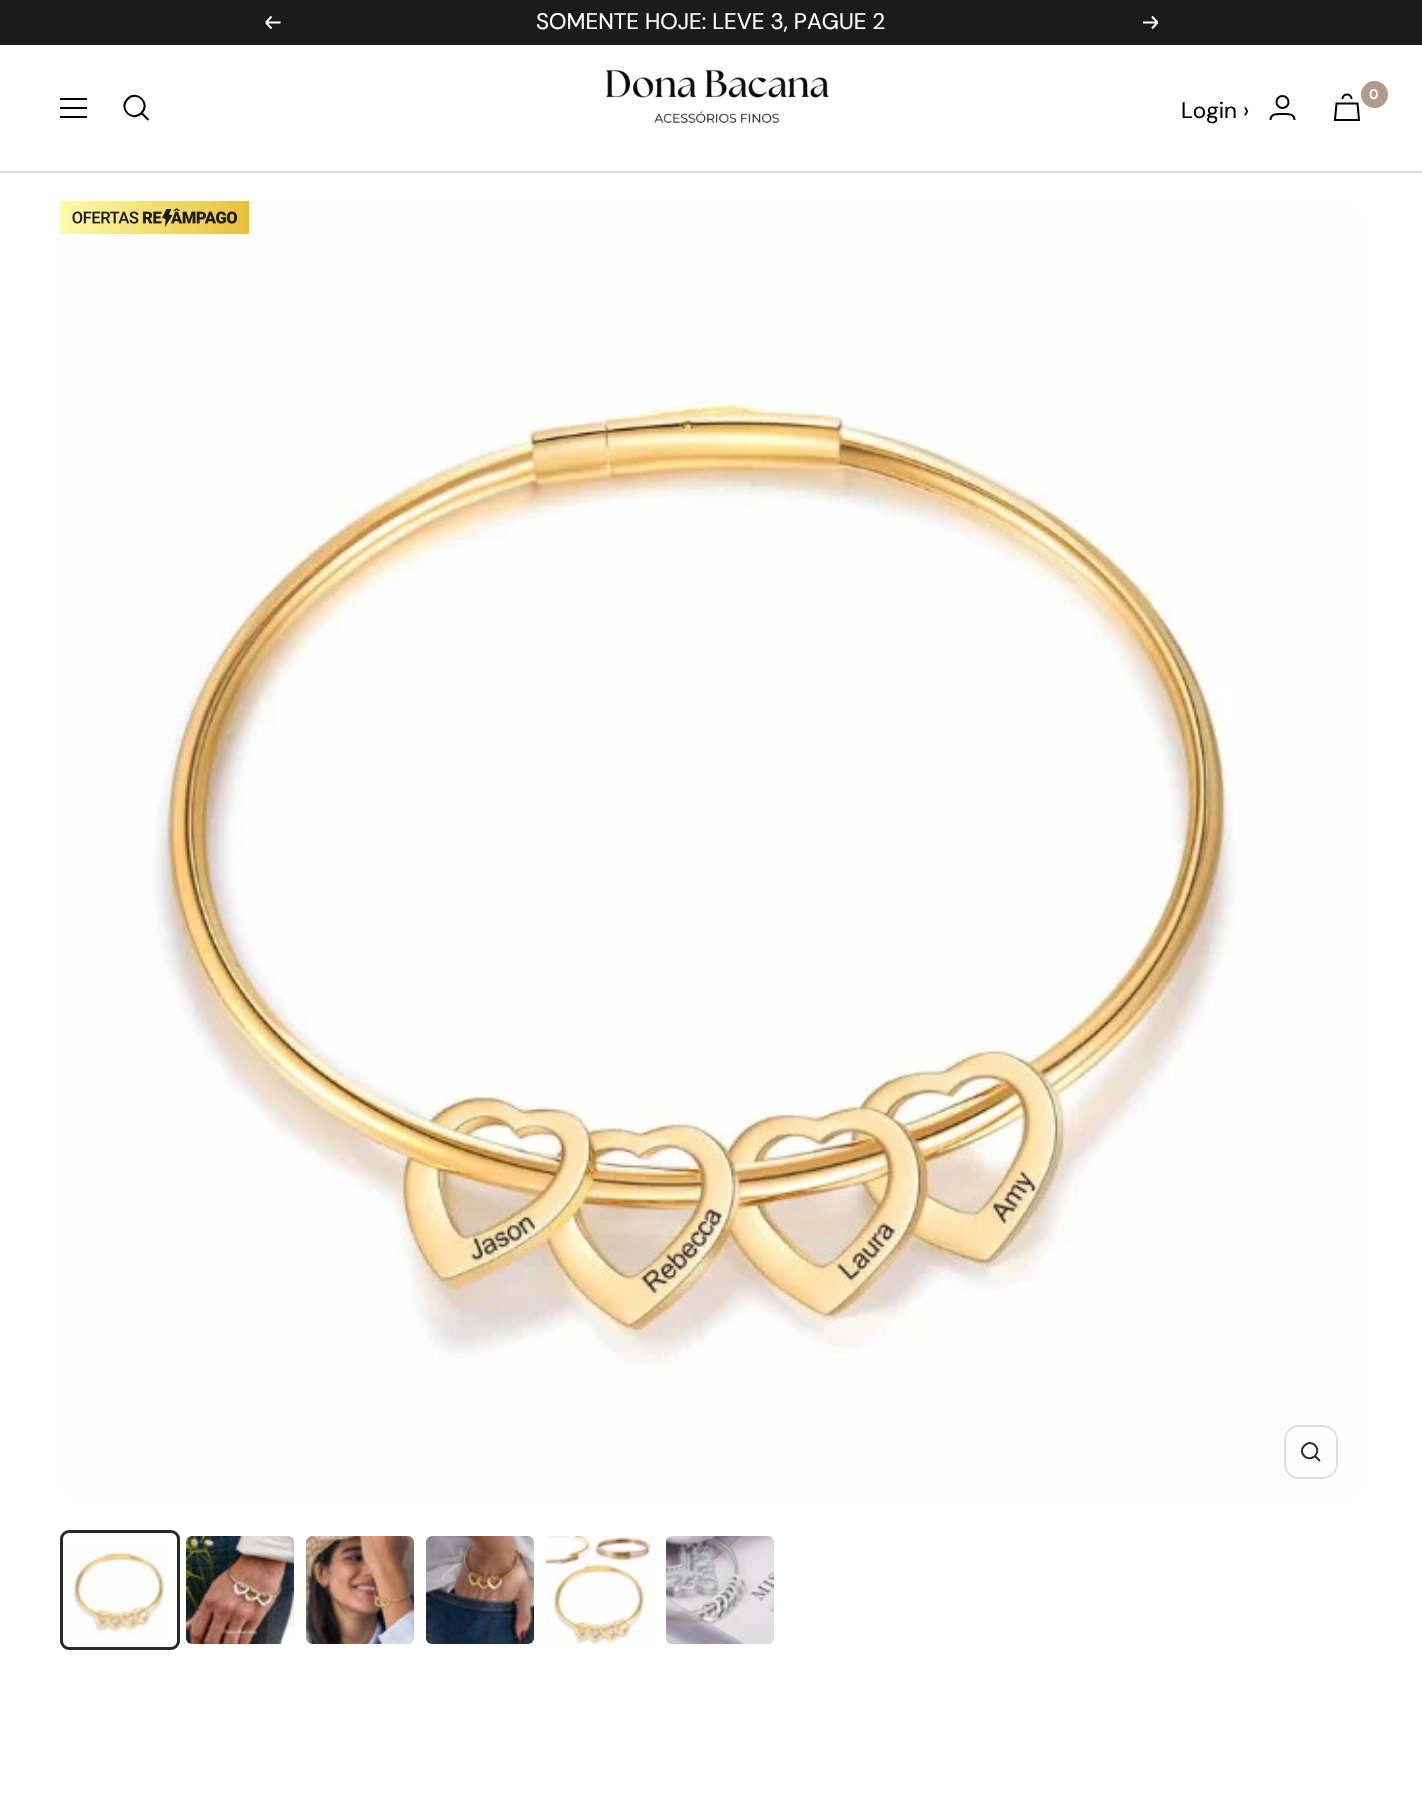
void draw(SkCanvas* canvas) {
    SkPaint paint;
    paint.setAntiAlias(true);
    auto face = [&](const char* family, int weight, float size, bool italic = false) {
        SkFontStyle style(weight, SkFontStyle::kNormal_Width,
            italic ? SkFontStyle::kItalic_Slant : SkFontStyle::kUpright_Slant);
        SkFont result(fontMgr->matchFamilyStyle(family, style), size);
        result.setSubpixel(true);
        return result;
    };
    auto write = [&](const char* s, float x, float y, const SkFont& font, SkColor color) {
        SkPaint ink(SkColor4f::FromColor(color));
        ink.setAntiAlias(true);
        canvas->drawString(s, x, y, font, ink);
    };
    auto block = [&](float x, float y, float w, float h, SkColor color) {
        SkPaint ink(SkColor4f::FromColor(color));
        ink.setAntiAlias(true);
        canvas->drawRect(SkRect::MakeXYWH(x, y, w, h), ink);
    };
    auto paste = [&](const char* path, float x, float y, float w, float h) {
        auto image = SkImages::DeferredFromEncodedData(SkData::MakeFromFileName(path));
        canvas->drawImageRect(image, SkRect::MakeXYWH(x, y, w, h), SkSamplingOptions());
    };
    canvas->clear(SK_ColorWHITE);
    block(0, 0, 1422, 45, SkColorSetRGB(27, 27, 27));
    paint.setStyle(SkPaint::kStroke_Style);
    paint.setStrokeWidth(2);
    paint.setColor(SK_ColorWHITE);
    canvas->drawPath(SkPathBuilder().moveTo(280.5f, 22.5f).lineTo(266, 22.5f).moveTo(266, 22.5f).lineTo(271.5f, 28.5f).moveTo(266, 22.5f).lineTo(271.5f, 16.5f).detach(), paint);
    auto kFont1 = face("DM Sans", 400, 22.5f);
    write("SOMENTE HOJE: LEVE 3, PAGUE 2", 536, 29, kFont1, SK_ColorWHITE);
    canvas->drawPath(SkPathBuilder().moveTo(1143, 22.5f).lineTo(1157.5f, 22.5f).moveTo(1157.5f, 22.5f).lineTo(1152, 28.5f).moveTo(1157.5f, 22.5f).lineTo(1152, 16.5f).detach(), paint);
    block(0, 171, 1422, 2, SkColorSetRGB(223, 223, 223));
    paint.setColor(SK_ColorBLACK);
    canvas->drawPath(SkPathBuilder().moveTo(60, 99).lineTo(87, 99).moveTo(60, 117).lineTo(87, 117).close().moveTo(60, 108).lineTo(87, 108).close().detach(), paint);
    canvas->drawPath(SkPathBuilder().moveTo(141.5f, 113).cubicTo(151, 103.5f, 137, 89.5f, 127.5f, 99).cubicTo(118, 108.5f, 132, 122.5f, 141.5f, 113).close().moveTo(141.5f, 113).lineTo(148.5f, 120).detach(), paint);
    paste("pic1.png", 606, 69, 223, 54);
    write("Login ›", 1181, 118, kFont1, SK_ColorBLACK);
    canvas->drawCircle(1282.5f, 102, 6, paint);
    canvas->drawPath(SkPathBuilder().moveTo(1270.5f, 120).cubicTo(1270.5f, 113, 1278, 114, 1282.5f, 114).cubicTo(1287, 114, 1294.5f, 113, 1294.5f, 120).detach(), paint);
    canvas->drawPath(SkPathBuilder().moveTo(1336.5f, 103.5f).lineTo(1357.5f, 103.5f).lineTo(1359, 120).lineTo(1335, 120).close().moveTo(1351.5f, 99).cubicTo(1351.5f, 93, 1342.5f, 93, 1342.5f, 99).detach(), paint);
    paint.setStyle(SkPaint::kFill_Style);
    paint.setColor(SkColorSetRGB(177, 154, 139));
    canvas->drawCircle(1374.5f, 94.5f, 13.5f, paint);
    auto kFont2 = face("DM Sans", 600, 14);
    write("0", 1369, 99, kFont2, SK_ColorWHITE);
    paste("pic2.png", 60, 201, 1302, 1302);
    {
        const SkColor colors[] = {SkColorSetRGB(255, 251, 172), SkColorSetRGB(220, 162, 1), SkColorSetRGB(254, 247, 119)};
        const float stops[] = {0, 0.5f, 1};
        const SkPoint ends[] = {{60, 218}, {627, 218}};
        paint.setShader(SkGradientShader::MakeLinear(ends, colors, stops, 3, SkTileMode::kClamp));
        paint.setAlpha(255);
    }
    canvas->drawRect(SkRect::MakeXYWH(60, 201, 189, 33), paint);
    paste("pic3.png", 72, 208, 166, 19);
    paint.setStyle(SkPaint::kStroke_Style);
    paint.setShader(nullptr);
    paint.setColor(SkColorSetRGB(223, 223, 223));
    canvas->drawRoundRect(SkRect::MakeXYWH(1285, 1426, 52, 52), 14, 14, paint);
    paint.setColor(SkColorSetRGB(40, 40, 40));
    canvas->drawPath(SkPathBuilder().moveTo(1315, 1456).cubicTo(1322, 1448.5f, 1311.5f, 1438, 1304.5f, 1445.5f).cubicTo(1297, 1452.5f, 1307.5f, 1463, 1315, 1456).close().moveTo(1315, 1456).lineTo(1320, 1461).detach(), paint);
    paste("pic4.png", 66, 1550, 101, 87);
    paint.setStrokeWidth(3);
    canvas->drawRoundRect(SkRect::MakeXYWH(61.5f, 1531.5f, 117, 117), 7.5f, 7.5f, paint);
    paste("pic5.png", 186, 1536, 108, 108);
    paste("pic6.png", 306, 1536, 108, 108);
    paste("pic7.png", 426, 1536, 108, 108);
    paste("pic8.png", 546, 1536, 106, 108);
    paste("pic9.png", 666, 1536, 108, 108);
}
